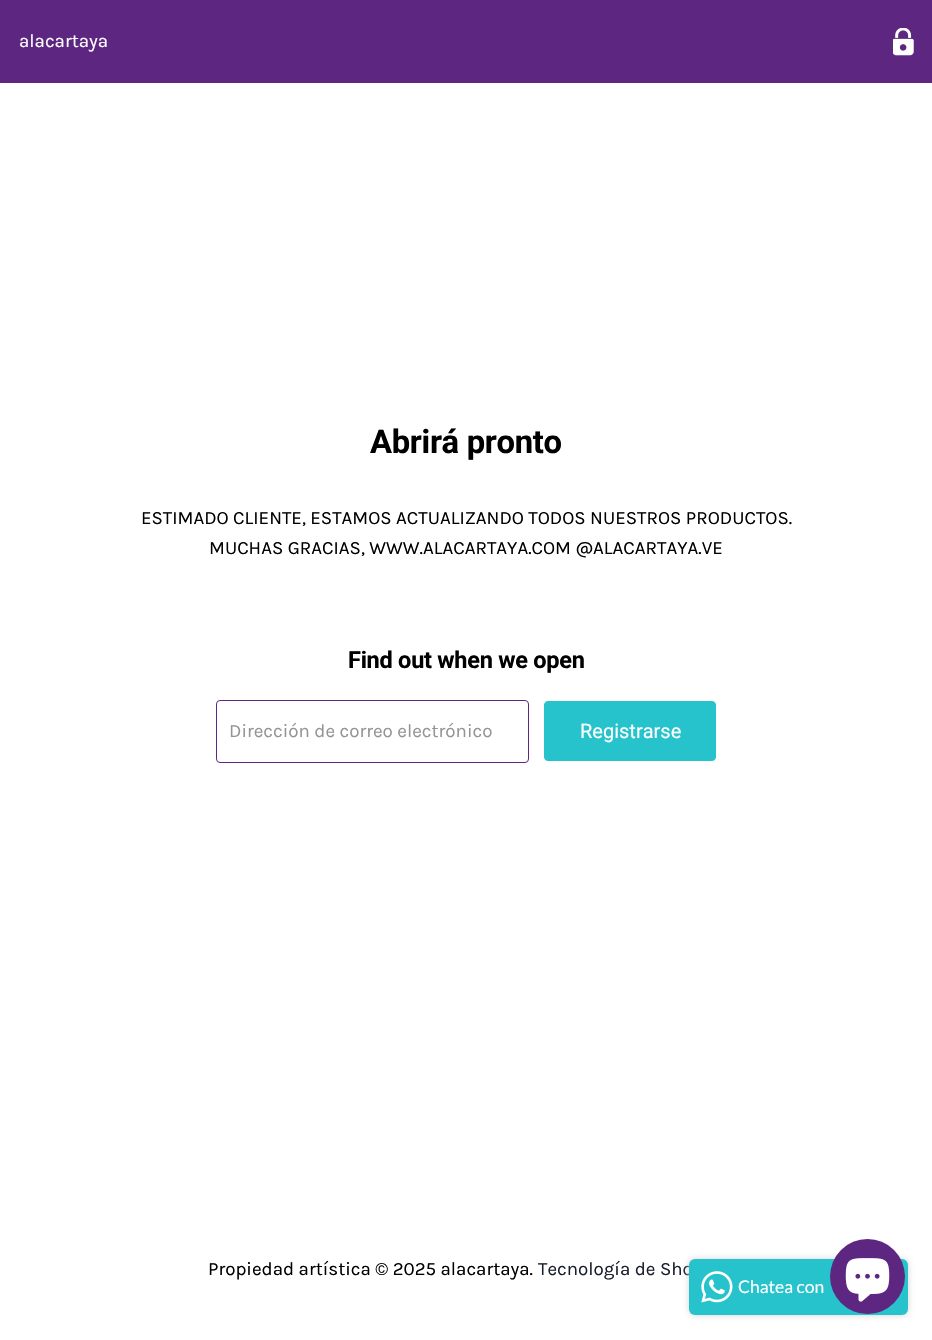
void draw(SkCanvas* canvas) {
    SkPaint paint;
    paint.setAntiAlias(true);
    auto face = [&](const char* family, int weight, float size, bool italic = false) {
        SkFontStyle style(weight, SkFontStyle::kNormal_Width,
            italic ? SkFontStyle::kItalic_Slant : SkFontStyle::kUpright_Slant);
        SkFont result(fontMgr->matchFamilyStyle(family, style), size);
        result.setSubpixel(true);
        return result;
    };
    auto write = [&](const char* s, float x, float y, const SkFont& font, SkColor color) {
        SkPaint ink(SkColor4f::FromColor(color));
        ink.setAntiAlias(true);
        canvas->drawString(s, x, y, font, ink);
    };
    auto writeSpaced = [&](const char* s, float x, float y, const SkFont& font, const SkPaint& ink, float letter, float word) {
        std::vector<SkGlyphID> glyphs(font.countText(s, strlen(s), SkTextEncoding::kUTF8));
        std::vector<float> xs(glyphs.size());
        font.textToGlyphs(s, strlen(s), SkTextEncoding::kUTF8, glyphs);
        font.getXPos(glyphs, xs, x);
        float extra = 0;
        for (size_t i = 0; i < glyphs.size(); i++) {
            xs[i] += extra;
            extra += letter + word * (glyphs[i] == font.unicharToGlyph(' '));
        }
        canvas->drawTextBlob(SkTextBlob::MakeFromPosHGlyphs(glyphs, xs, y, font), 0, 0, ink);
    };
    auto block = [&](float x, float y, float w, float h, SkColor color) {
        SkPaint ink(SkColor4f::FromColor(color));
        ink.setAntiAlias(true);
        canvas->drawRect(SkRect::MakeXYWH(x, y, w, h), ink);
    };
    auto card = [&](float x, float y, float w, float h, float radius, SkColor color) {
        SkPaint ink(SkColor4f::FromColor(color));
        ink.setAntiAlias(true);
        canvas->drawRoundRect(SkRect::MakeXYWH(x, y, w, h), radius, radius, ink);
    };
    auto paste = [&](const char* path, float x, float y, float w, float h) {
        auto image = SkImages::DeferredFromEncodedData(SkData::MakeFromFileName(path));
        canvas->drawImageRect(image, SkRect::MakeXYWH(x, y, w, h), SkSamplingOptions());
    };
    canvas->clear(SK_ColorWHITE);
    block(0, 0, 932, 83, SkColorSetRGB(93, 39, 129));
    auto kFont1 = face("Karla", 400, 18.75f);
    write("alacartaya", 19, 47, kFont1, SK_ColorWHITE);
    paste("pic1.png", 893, 28, 21, 28);
    auto kFont2 = face("Roboto", 700, 32.75f);
    paint.setColor(SK_ColorBLACK);
    writeSpaced("Abrirá pronto", 370, 453, kFont2, paint, -0.3f, 0);
    write("ESTIMADO CLIENTE, ESTAMOS ACTUALIZANDO TODOS NUESTROS PRODUCTOS.", 141, 524, kFont1, SK_ColorBLACK);
    write("MUCHAS GRACIAS, WWW.ALACARTAYA.COM @ALACARTAYA.VE", 209, 554, kFont1, SK_ColorBLACK);
    auto kFont3 = face("Roboto", 700, 23.5f);
    writeSpaced("Find out when we open", 348, 668, kFont3, paint, -0.25f, 0);
    paint.setStyle(SkPaint::kStroke_Style);
    paint.setStrokeWidth(1);
    paint.setColor(SkColorSetRGB(93, 39, 129));
    canvas->drawRoundRect(SkRect::MakeXYWH(216.5f, 700.5f, 312, 62), 3.5f, 3.5f, paint);
    write("Dirección de correo electrónico", 229, 737, kFont1, SkColorSetRGB(148, 148, 148));
    paint.setStyle(SkPaint::kFill_Style);
    paint.setColor(SkColorSetRGB(38, 195, 204));
    canvas->drawRoundRect(SkRect::MakeXYWH(544.5f, 701.5f, 171, 59), 3.5f, 3.5f, paint);
    paint.setStyle(SkPaint::kStroke_Style);
    canvas->drawRoundRect(SkRect::MakeXYWH(544.5f, 701.5f, 171, 59), 3.5f, 3.5f, paint);
    auto kFont4 = face("Roboto", 400, 20);
    write("Registrarse", 580, 738, kFont4, SK_ColorWHITE);
    write("Propiedad artística © 2025 alacartaya.", 208, 1275, kFont1, SK_ColorBLACK);
    write("Tecnología de Sho", 538, 1275, kFont1, SkColorSetRGB(23, 31, 43));
    paint.setStyle(SkPaint::kFill_Style);
    paint.setColor(SkColorSetRGB(211, 211, 211));
    paint.setMaskFilter(SkMaskFilter::MakeBlur(kNormal_SkBlurStyle, 3));
    canvas->drawRoundRect(SkRect::MakeXYWH(689, 1259, 219, 56), 6, 6, paint);
    paint.setMaskFilter(nullptr);
    card(689, 1259, 219, 56, 6, SkColorSetRGB(38, 195, 204));
    paint.setColor(SkColorSetRGB(93, 39, 129));
    canvas->drawCircle(867.5f, 1276.5f, 37.5f, paint);
    paste("pic2.png", 845, 1258, 45, 44);
    paste("pic3.png", 701, 1271, 32, 32);
    auto kFont5 = face("Lato", 400, 17.5f);
    write("Chatea con", 738, 1293, kFont5, SK_ColorWHITE);
}
